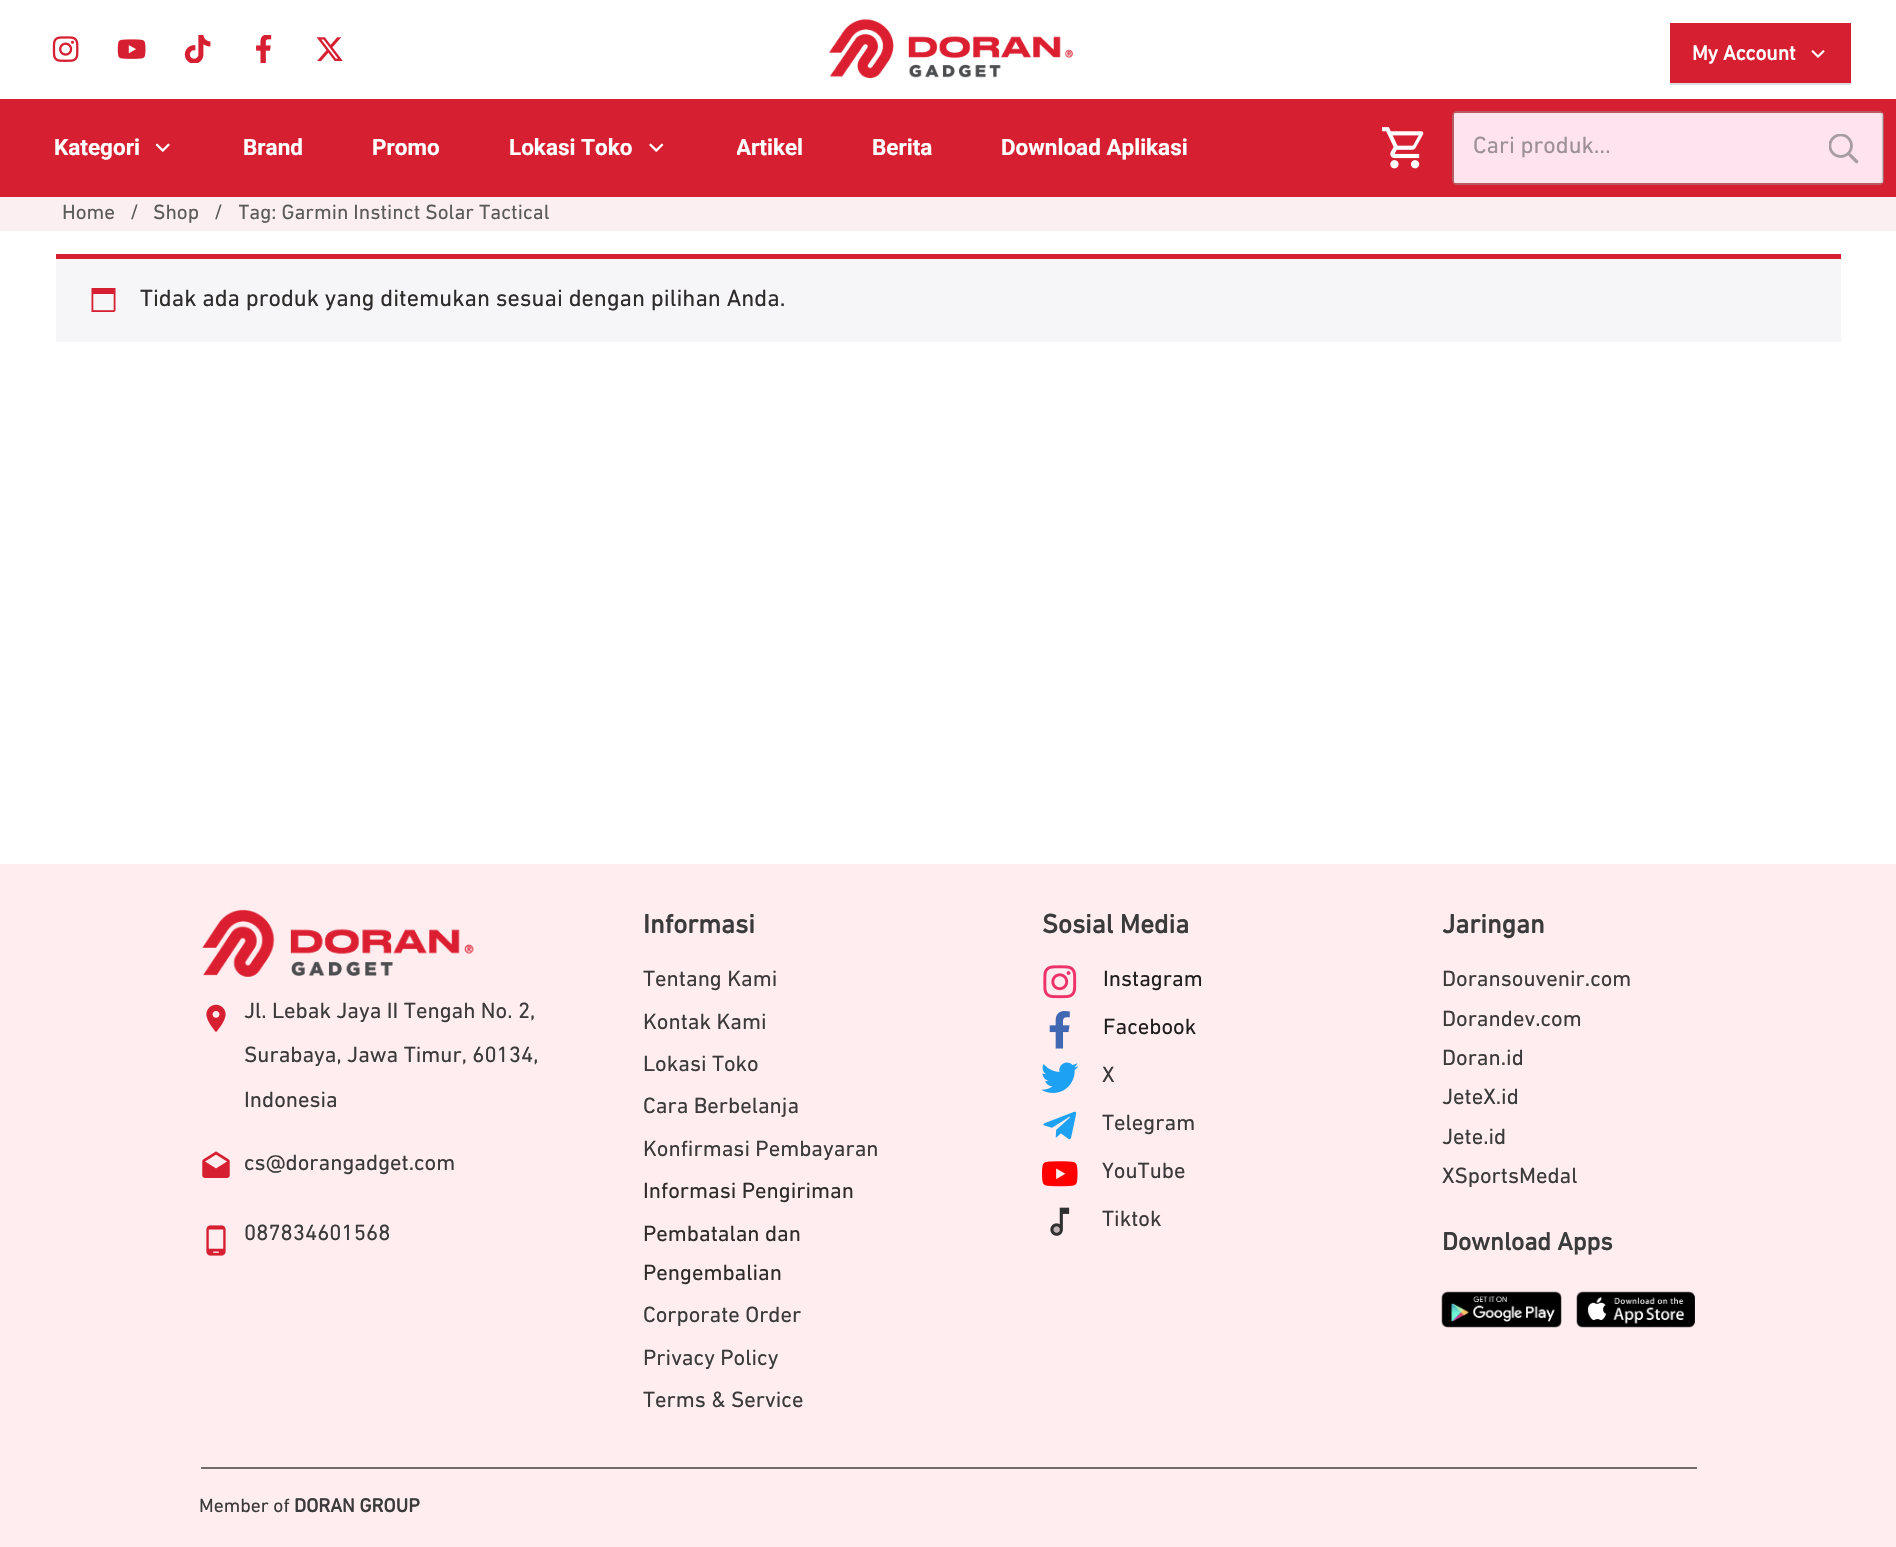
void draw(SkCanvas* canvas) {
    SkPaint paint;
    paint.setAntiAlias(true);
    auto face = [&](const char* family, int weight, float size, bool italic = false) {
        SkFontStyle style(weight, SkFontStyle::kNormal_Width,
            italic ? SkFontStyle::kItalic_Slant : SkFontStyle::kUpright_Slant);
        SkFont result(fontMgr->matchFamilyStyle(family, style), size);
        result.setSubpixel(true);
        return result;
    };
    auto write = [&](const char* s, float x, float y, const SkFont& font, SkColor color) {
        SkPaint ink(SkColor4f::FromColor(color));
        ink.setAntiAlias(true);
        canvas->drawString(s, x, y, font, ink);
    };
    auto block = [&](float x, float y, float w, float h, SkColor color) {
        SkPaint ink(SkColor4f::FromColor(color));
        ink.setAntiAlias(true);
        canvas->drawRect(SkRect::MakeXYWH(x, y, w, h), ink);
    };
    auto paste = [&](const char* path, float x, float y, float w, float h) {
        auto image = SkImages::DeferredFromEncodedData(SkData::MakeFromFileName(path));
        canvas->drawImageRect(image, SkRect::MakeXYWH(x, y, w, h), SkSamplingOptions());
    };
    canvas->clear(SK_ColorWHITE);
    paste("pic1.png", 52, 36, 27, 26);
    paste("pic2.png", 117, 39, 29, 20);
    paste("pic3.png", 184, 35, 27, 28);
    paste("pic4.png", 256, 35, 16, 28);
    paste("pic5.png", 316, 37, 27, 24);
    paste("pic6.png", 829, 19, 244, 59);
    block(1670, 83, 181, 2, SkColorSetRGB(221, 221, 221));
    block(1670, 23, 181, 60, SkColorSetRGB(214, 31, 49));
    auto kFont1 = face("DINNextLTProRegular", 700, 21);
    write("My Account", 1692, 60, kFont1, SK_ColorWHITE);
    paste("pic7.png", 1811, 50, 14, 8);
    block(0, 99, 1896, 98, SkColorSetRGB(214, 31, 49));
    auto kFont2 = face("Roboto", 700, 22.5f);
    write("Kategori", 54, 155, kFont2, SK_ColorWHITE);
    paste("pic8.png", 155, 143, 15, 9);
    write("Brand", 243, 155, kFont2, SK_ColorWHITE);
    write("Promo", 372, 155, kFont2, SK_ColorWHITE);
    write("Lokasi Toko", 509, 155, kFont2, SK_ColorWHITE);
    paste("pic9.png", 649, 143, 15, 9);
    canvas->save();
    canvas->clipRect(SkRect::MakeXYWH(737, 126, 66, 45));
    write("Artikel", 736, 155, kFont2, SK_ColorWHITE);
    canvas->restore();
    write("Berita", 872, 155, kFont2, SK_ColorWHITE);
    write("Download Aplikasi", 1001, 155, kFont2, SK_ColorWHITE);
    paste("pic10.png", 1382, 127, 42, 42);
    block(1454, 113, 429, 70, SkColorSetRGB(255, 228, 240));
    paint.setStyle(SkPaint::kStroke_Style);
    paint.setStrokeWidth(2);
    paint.setColor(SkColorSetARGB(128, 151, 151, 151));
    canvas->drawRoundRect(SkRect::MakeXYWH(1453, 112, 430, 72), 4, 4, paint);
    auto kFont3 = face("DINNextLTProRegular", 400, 24);
    write("Cari produk…", 1473, 153, kFont3, SkColorSetRGB(157, 144, 150));
    paste("pic11.png", 1829, 134, 30, 30);
    block(0, 197, 1896, 34, SkColorSetRGB(251, 239, 241));
    auto kFont4 = face("DINNextLTProRegular", 400, 21);
    write("Home", 62, 219, kFont4, SkColorSetRGB(92, 91, 91));
    write("/", 130, 219, kFont4, SkColorSetRGB(92, 91, 91));
    write("Shop", 153, 219, kFont4, SkColorSetRGB(92, 91, 91));
    write("/", 214, 219, kFont4, SkColorSetRGB(92, 91, 91));
    canvas->save();
    canvas->clipRect(SkRect::MakeXYWH(239, 198, 310, 32));
    write("Tag: Garmin Instinct Solar Tactical", 238, 219, kFont4, SkColorSetRGB(92, 91, 91));
    canvas->restore();
    block(56, 259, 1785, 83, SkColorSetRGB(246, 245, 248));
    block(56, 254, 1785, 5, SkColorSetRGB(214, 31, 49));
    paste("pic12.png", 91, 288, 25, 24);
    write("Tidak ada produk yang ditemukan sesuai dengan pilihan Anda.", 140, 306, kFont3, SkColorSetRGB(47, 44, 44));
    block(0, 864, 1896, 683, SkColorSetRGB(255, 237, 239));
    paste("pic13.png", 202, 909, 272, 68);
    paste("pic14.png", 206, 1004, 20, 29);
    auto kFont5 = face("DINNextLTProRegular", 400, 22.5f);
    write("Jl. Lebak Jaya II Tengah No. 2,", 244, 1018, kFont5, SkColorSetRGB(59, 59, 59));
    write("Surabaya, Jawa Timur, 60134,", 244, 1062, kFont5, SkColorSetRGB(59, 59, 59));
    write("Indonesia", 244, 1107, kFont5, SkColorSetRGB(59, 59, 59));
    paste("pic15.png", 202, 1151, 28, 27);
    write("cs@dorangadget.com", 244, 1170, kFont5, SkColorSetRGB(59, 59, 59));
    paste("pic16.png", 206, 1225, 20, 31);
    write("087834601568", 244, 1240, kFont5, SkColorSetRGB(59, 59, 59));
    auto kFont6 = face("DINNextLTProRegular", 700, 27);
    write("Informasi", 643, 933, kFont6, SkColorSetRGB(59, 59, 59));
    write("Tentang Kami", 643, 986, kFont5, SkColorSetRGB(59, 59, 59));
    write("Kontak Kami", 643, 1029, kFont5, SkColorSetRGB(59, 59, 59));
    write("Lokasi Toko", 643, 1071, kFont5, SkColorSetRGB(59, 59, 59));
    write("Cara Berbelanja", 643, 1113, kFont5, SkColorSetRGB(59, 59, 59));
    write("Konfirmasi Pembayaran", 643, 1156, kFont5, SkColorSetRGB(59, 59, 59));
    write("Informasi Pengiriman", 643, 1198, kFont5, SkColorSetRGB(47, 44, 44));
    write("Pembatalan dan", 643, 1241, kFont5, SkColorSetRGB(47, 44, 44));
    write("Pengembalian", 643, 1280, kFont5, SkColorSetRGB(47, 44, 44));
    write("Corporate Order", 643, 1322, kFont5, SkColorSetRGB(59, 59, 59));
    write("Privacy Policy", 643, 1365, kFont5, SkColorSetRGB(59, 59, 59));
    write("Terms & Service", 643, 1407, kFont5, SkColorSetRGB(59, 59, 59));
    write("Sosial Media", 1042, 933, kFont6, SkColorSetRGB(59, 59, 59));
    paste("pic17.png", 1043, 965, 34, 34);
    write("Instagram", 1103, 986, kFont5, SkColorSetRGB(31, 31, 31));
    paste("pic18.png", 1049, 1011, 21, 38);
    write("Facebook", 1103, 1034, kFont5, SkColorSetRGB(31, 31, 31));
    paste("pic19.png", 1041, 1062, 38, 31);
    write("X", 1102, 1082, kFont5, SkColorSetRGB(59, 59, 59));
    paste("pic20.png", 1043, 1111, 34, 29);
    write("Telegram", 1102, 1130, kFont5, SkColorSetRGB(59, 59, 59));
    paste("pic21.png", 1042, 1161, 36, 26);
    write("YouTube", 1102, 1178, kFont5, SkColorSetRGB(59, 59, 59));
    paste("pic22.png", 1050, 1207, 20, 29);
    write("Tiktok", 1102, 1226, kFont5, SkColorSetRGB(59, 59, 59));
    write("Jaringan", 1442, 933, kFont6, SkColorSetRGB(59, 59, 59));
    write("Doransouvenir.com", 1442, 986, kFont5, SkColorSetRGB(59, 59, 59));
    write("Dorandev.com", 1442, 1026, kFont5, SkColorSetRGB(59, 59, 59));
    write("Doran.id", 1442, 1065, kFont5, SkColorSetRGB(59, 59, 59));
    write("JeteX.id", 1442, 1104, kFont5, SkColorSetRGB(59, 59, 59));
    write("Jete.id", 1442, 1144, kFont5, SkColorSetRGB(59, 59, 59));
    write("XSportsMedal", 1442, 1183, kFont5, SkColorSetRGB(59, 59, 59));
    auto kFont7 = face("DINNextLTProRegular", 700, 25.5f);
    write("Download Apps", 1442, 1250, kFont7, SkColorSetRGB(59, 59, 59));
    paste("pic23.png", 1441, 1291, 121, 37);
    paste("pic24.png", 1576, 1291, 119, 37);
    block(201, 1467, 1496, 2, SkColorSetRGB(113, 109, 109));
    auto kFont8 = face("DINNextLTProRegular", 400, 19.5f);
    write("Member of", 199, 1512, kFont8, SkColorSetRGB(59, 59, 59));
    auto kFont9 = face("DINNextLTProRegular", 700, 19.5f);
    write("DORAN GROUP", 294, 1512, kFont9, SkColorSetRGB(59, 59, 59));
}
